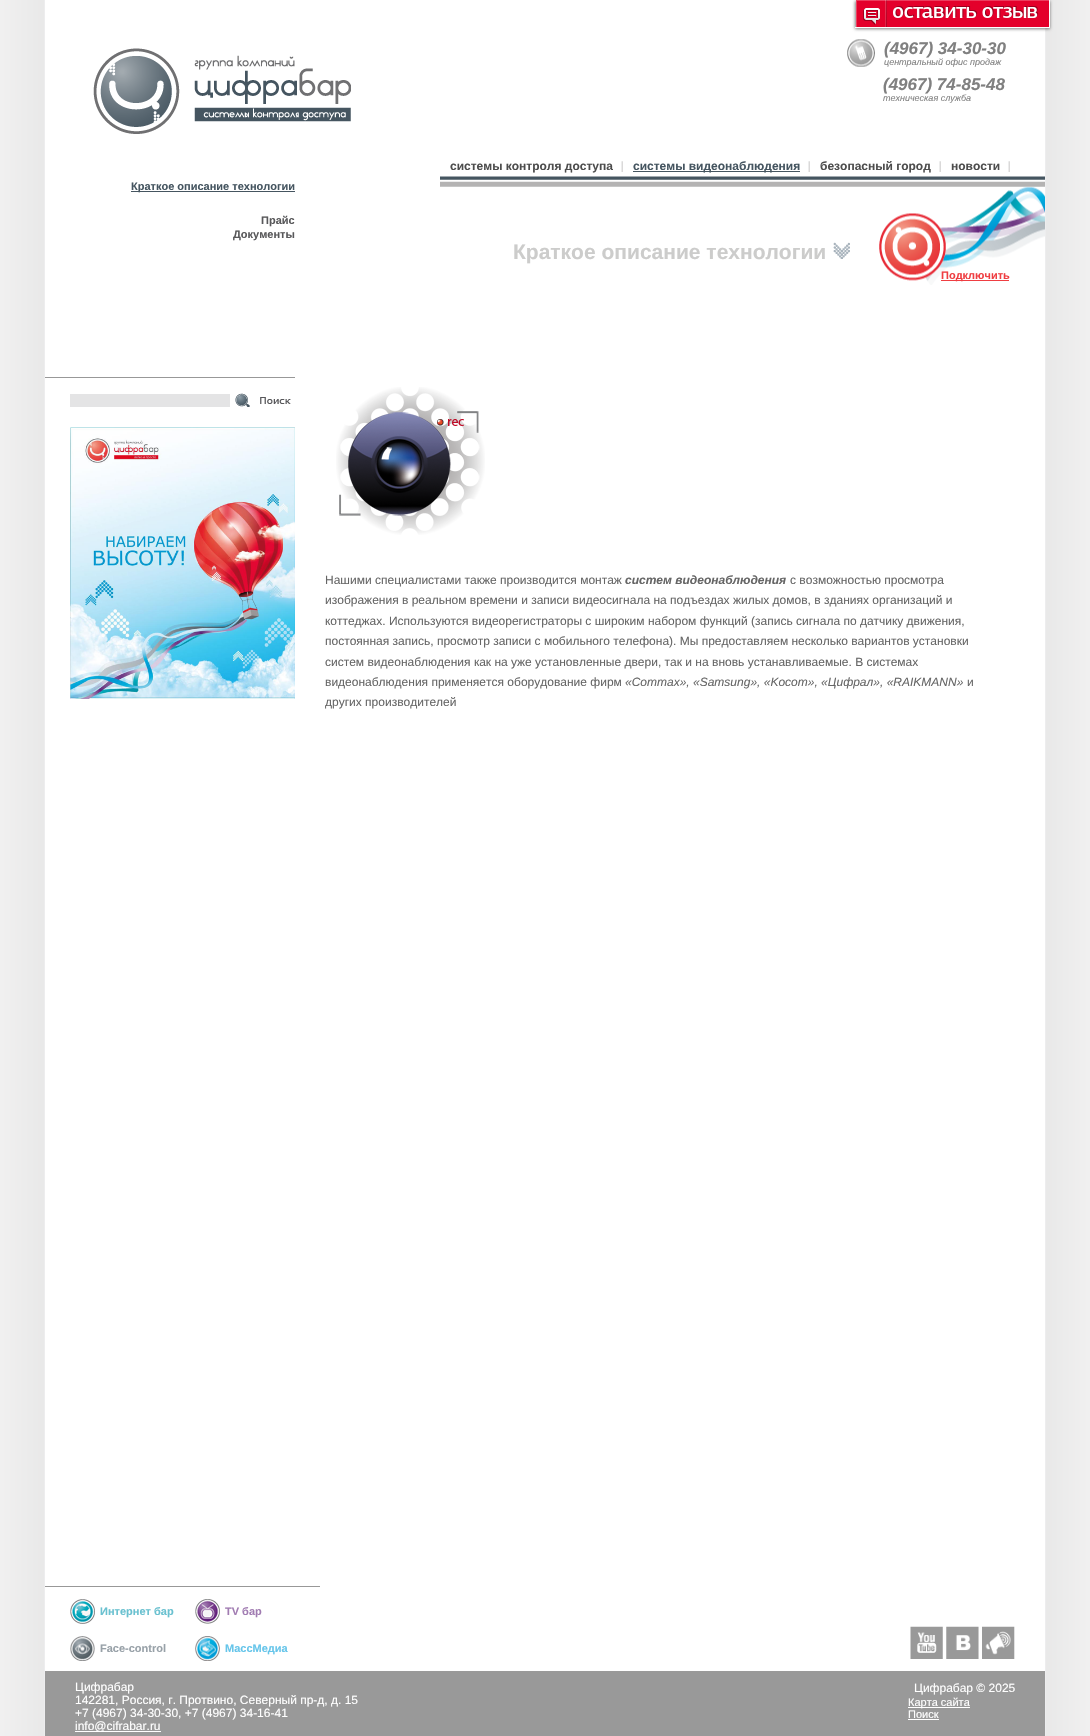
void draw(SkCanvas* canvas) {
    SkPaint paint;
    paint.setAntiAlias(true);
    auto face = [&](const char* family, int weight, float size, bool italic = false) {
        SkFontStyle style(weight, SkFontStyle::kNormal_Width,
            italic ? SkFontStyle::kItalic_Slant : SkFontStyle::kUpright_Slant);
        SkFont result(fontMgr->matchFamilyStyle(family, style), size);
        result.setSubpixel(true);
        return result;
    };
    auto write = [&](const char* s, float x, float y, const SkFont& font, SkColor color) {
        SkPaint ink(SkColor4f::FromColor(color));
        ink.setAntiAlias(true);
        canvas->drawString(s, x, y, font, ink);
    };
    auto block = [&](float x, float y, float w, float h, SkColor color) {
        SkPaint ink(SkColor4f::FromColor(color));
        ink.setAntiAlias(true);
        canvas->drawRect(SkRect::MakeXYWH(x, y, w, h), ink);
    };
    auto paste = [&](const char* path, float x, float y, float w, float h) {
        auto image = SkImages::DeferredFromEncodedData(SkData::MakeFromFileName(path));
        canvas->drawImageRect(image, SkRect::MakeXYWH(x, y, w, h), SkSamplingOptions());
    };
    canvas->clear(SK_ColorWHITE);
    paste("pic1.png", 0, 0, 1090, 1736);
    paint.setColor(SkColorSetARGB(128, 0, 0, 0));
    paint.setMaskFilter(SkMaskFilter::MakeBlur(kNormal_SkBlurStyle, 1.5f));
    canvas->drawRect(SkRect::MakeXYWH(855, 1, 195, 28), paint);
    paint.setMaskFilter(nullptr);
    block(857, 1, 192, 26, SkColorSetRGB(228, 0, 43));
    canvas->save();
    canvas->clipRect(SkRect::MakeXYWH(856, 0, 193, 27));
    paint.setColor(SkColorSetRGB(235, 63, 95));
    canvas->drawPath(SkPathBuilder(SkPathFillType::kEvenOdd).moveTo(757, -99).lineTo(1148, -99).lineTo(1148, 126).lineTo(757, 126).close().moveTo(857, 1).lineTo(1050, 1).lineTo(1050, 28).lineTo(857, 28).close().detach(), paint);
    canvas->restore();
    block(1049, 0, 1, 28, SK_ColorWHITE);
    block(855, 27, 195, 1, SK_ColorWHITE);
    paste("pic2.png", 863, 0, 176, 27);
    paste("pic3.png", 93, 48, 258, 86);
    paste("pic4.png", 847, 39, 28, 28);
    auto kFont1 = face("Liberation Sans", 700, 17, true);
    write("(4967) 34-30-30", 884, 54, kFont1, SkColorSetRGB(128, 128, 128));
    auto kFont2 = face("Liberation Sans", 400, 9, true);
    write("центральный офис продаж", 884, 65, kFont2, SkColorSetRGB(128, 128, 128));
    write("(4967) 74-85-48", 883, 90, kFont1, SkColorSetRGB(128, 128, 128));
    write("техническая служба", 883, 101, kFont2, SkColorSetRGB(128, 128, 128));
    paste("pic5.png", 440, 176, 605, 11);
    paste("pic6.png", 621, 161, 2, 11);
    auto kFont3 = face("Liberation Sans", 700, 12);
    write("системы контроля доступа", 450, 170, kFont3, SkColorSetRGB(77, 77, 77));
    paste("pic6.png", 808, 161, 2, 11);
    block(633, 171, 167, 1, SkColorSetRGB(69, 85, 96));
    write("системы видеонаблюдения", 633, 170, kFont3, SkColorSetRGB(69, 85, 96));
    paste("pic6.png", 939, 161, 2, 11);
    write("безопасный город", 820, 170, kFont3, SkColorSetRGB(77, 77, 77));
    paste("pic6.png", 1008, 161, 2, 11);
    write("новости", 951, 170, kFont3, SkColorSetRGB(77, 77, 77));
    paste("pic7.png", 879, 187, 166, 98);
    block(941, 280, 68, 1, SkColorSetRGB(239, 62, 66));
    auto kFont4 = face("Liberation Sans", 700, 11);
    write("Подключить", 941, 279, kFont4, SkColorSetRGB(239, 62, 66));
    block(131, 191, 164, 1, SkColorSetRGB(69, 85, 96));
    write("Краткое описание технологии", 131, 190, kFont4, SkColorSetRGB(69, 85, 96));
    write("Прайс", 261, 224, kFont4, SkColorSetRGB(88, 88, 90));
    write("Документы", 233, 238, kFont4, SkColorSetRGB(88, 88, 90));
    auto kFont5 = face("Liberation Sans", 700, 21);
    write("Краткое описание технологии", 513, 259, kFont5, SkColorSetRGB(204, 204, 203));
    paste("pic8.png", 833, 242, 17, 17);
    block(45, 377, 250, 1, SkColorSetRGB(152, 152, 152));
    block(70, 394, 160, 13, SkColorSetRGB(228, 228, 229));
    paste("pic9.png", 235, 393, 56, 14);
    paste("pic10.png", 70, 427, 225, 272);
    paste("pic11.png", 336, 387, 149, 148);
    auto kFont6 = face("Liberation Sans", 400, 12);
    write("Нашими специалистами также производится монтаж", 325, 584, kFont6, SkColorSetRGB(102, 102, 102));
    auto kFont7 = face("Liberation Sans", 700, 12, true);
    write("систем видеонаблюдения", 625, 584, kFont7, SkColorSetRGB(102, 102, 102));
    write("с возможностью просмотра", 790, 584, kFont6, SkColorSetRGB(102, 102, 102));
    write("изображения в реальном времени и записи видеосигнала на подъездах жилых домов, в зданиях организаций и", 325, 604, kFont6, SkColorSetRGB(102, 102, 102));
    write("коттеджах. Используются видеорегистраторы с широким набором функций (запись сигнала по датчику движения,", 325, 625, kFont6, SkColorSetRGB(102, 102, 102));
    write("постоянная запись, просмотр записи с мобильного телефона). Мы предоставляем несколько вариантов установки", 325, 645, kFont6, SkColorSetRGB(102, 102, 102));
    write("систем видеонаблюдения как на уже установленные двери, так и на вновь устанавливаемые. В системах", 325, 666, kFont6, SkColorSetRGB(102, 102, 102));
    write("видеонаблюдения применяется оборудование фирм", 325, 686, kFont6, SkColorSetRGB(102, 102, 102));
    auto kFont8 = face("Liberation Sans", 400, 12, true);
    write("«Commax», «Samsung», «Kocom», «Цифрал», «RAIKMANN»", 625, 686, kFont8, SkColorSetRGB(102, 102, 102));
    write("и", 967, 686, kFont6, SkColorSetRGB(102, 102, 102));
    write("других производителей", 325, 706, kFont6, SkColorSetRGB(102, 102, 102));
    block(45, 1586, 275, 1, SkColorSetRGB(152, 152, 152));
    paste("pic12.png", 70, 1599, 25, 25);
    write("Интернет бар", 100, 1615, kFont4, SkColorSetRGB(106, 193, 208));
    paste("pic13.png", 195, 1599, 25, 25);
    write("TV бар", 225, 1615, kFont4, SkColorSetRGB(161, 124, 178));
    paste("pic14.png", 70, 1636, 25, 25);
    write("Face-control", 100, 1652, kFont4, SkColorSetRGB(152, 161, 168));
    paste("pic15.png", 195, 1636, 25, 25);
    write("МассМедиа", 225, 1652, kFont4, SkColorSetRGB(102, 197, 234));
    paste("pic16.png", 910, 1626, 33, 33);
    paste("pic17.png", 946, 1626, 33, 33);
    paste("pic18.png", 982, 1626, 33, 33);
    block(45, 1671, 1000, 65, SkColorSetRGB(153, 153, 153));
    write("Цифрабар", 75, 1691, kFont6, SK_ColorWHITE);
    write("142281, Россия, г. Протвино, Северный пр-д, д. 15", 75, 1704, kFont6, SK_ColorWHITE);
    write("+7 (4967) 34-30-30, +7 (4967) 34-16-41", 75, 1717, kFont6, SK_ColorWHITE);
    block(75, 1731, 86, 1, SK_ColorWHITE);
    write("info@cifrabar.ru", 75, 1730, kFont6, SK_ColorWHITE);
    write("Цифрабар © 2025", 914, 1692, kFont6, SK_ColorWHITE);
    block(908, 1707, 62, 1, SK_ColorWHITE);
    auto kFont9 = face("Liberation Sans", 400, 11);
    write("Карта сайта", 908, 1706, kFont9, SK_ColorWHITE);
    write("Поиск", 908, 1718, kFont9, SK_ColorWHITE);
    block(908, 1719, 31, 1, SK_ColorWHITE);
}
